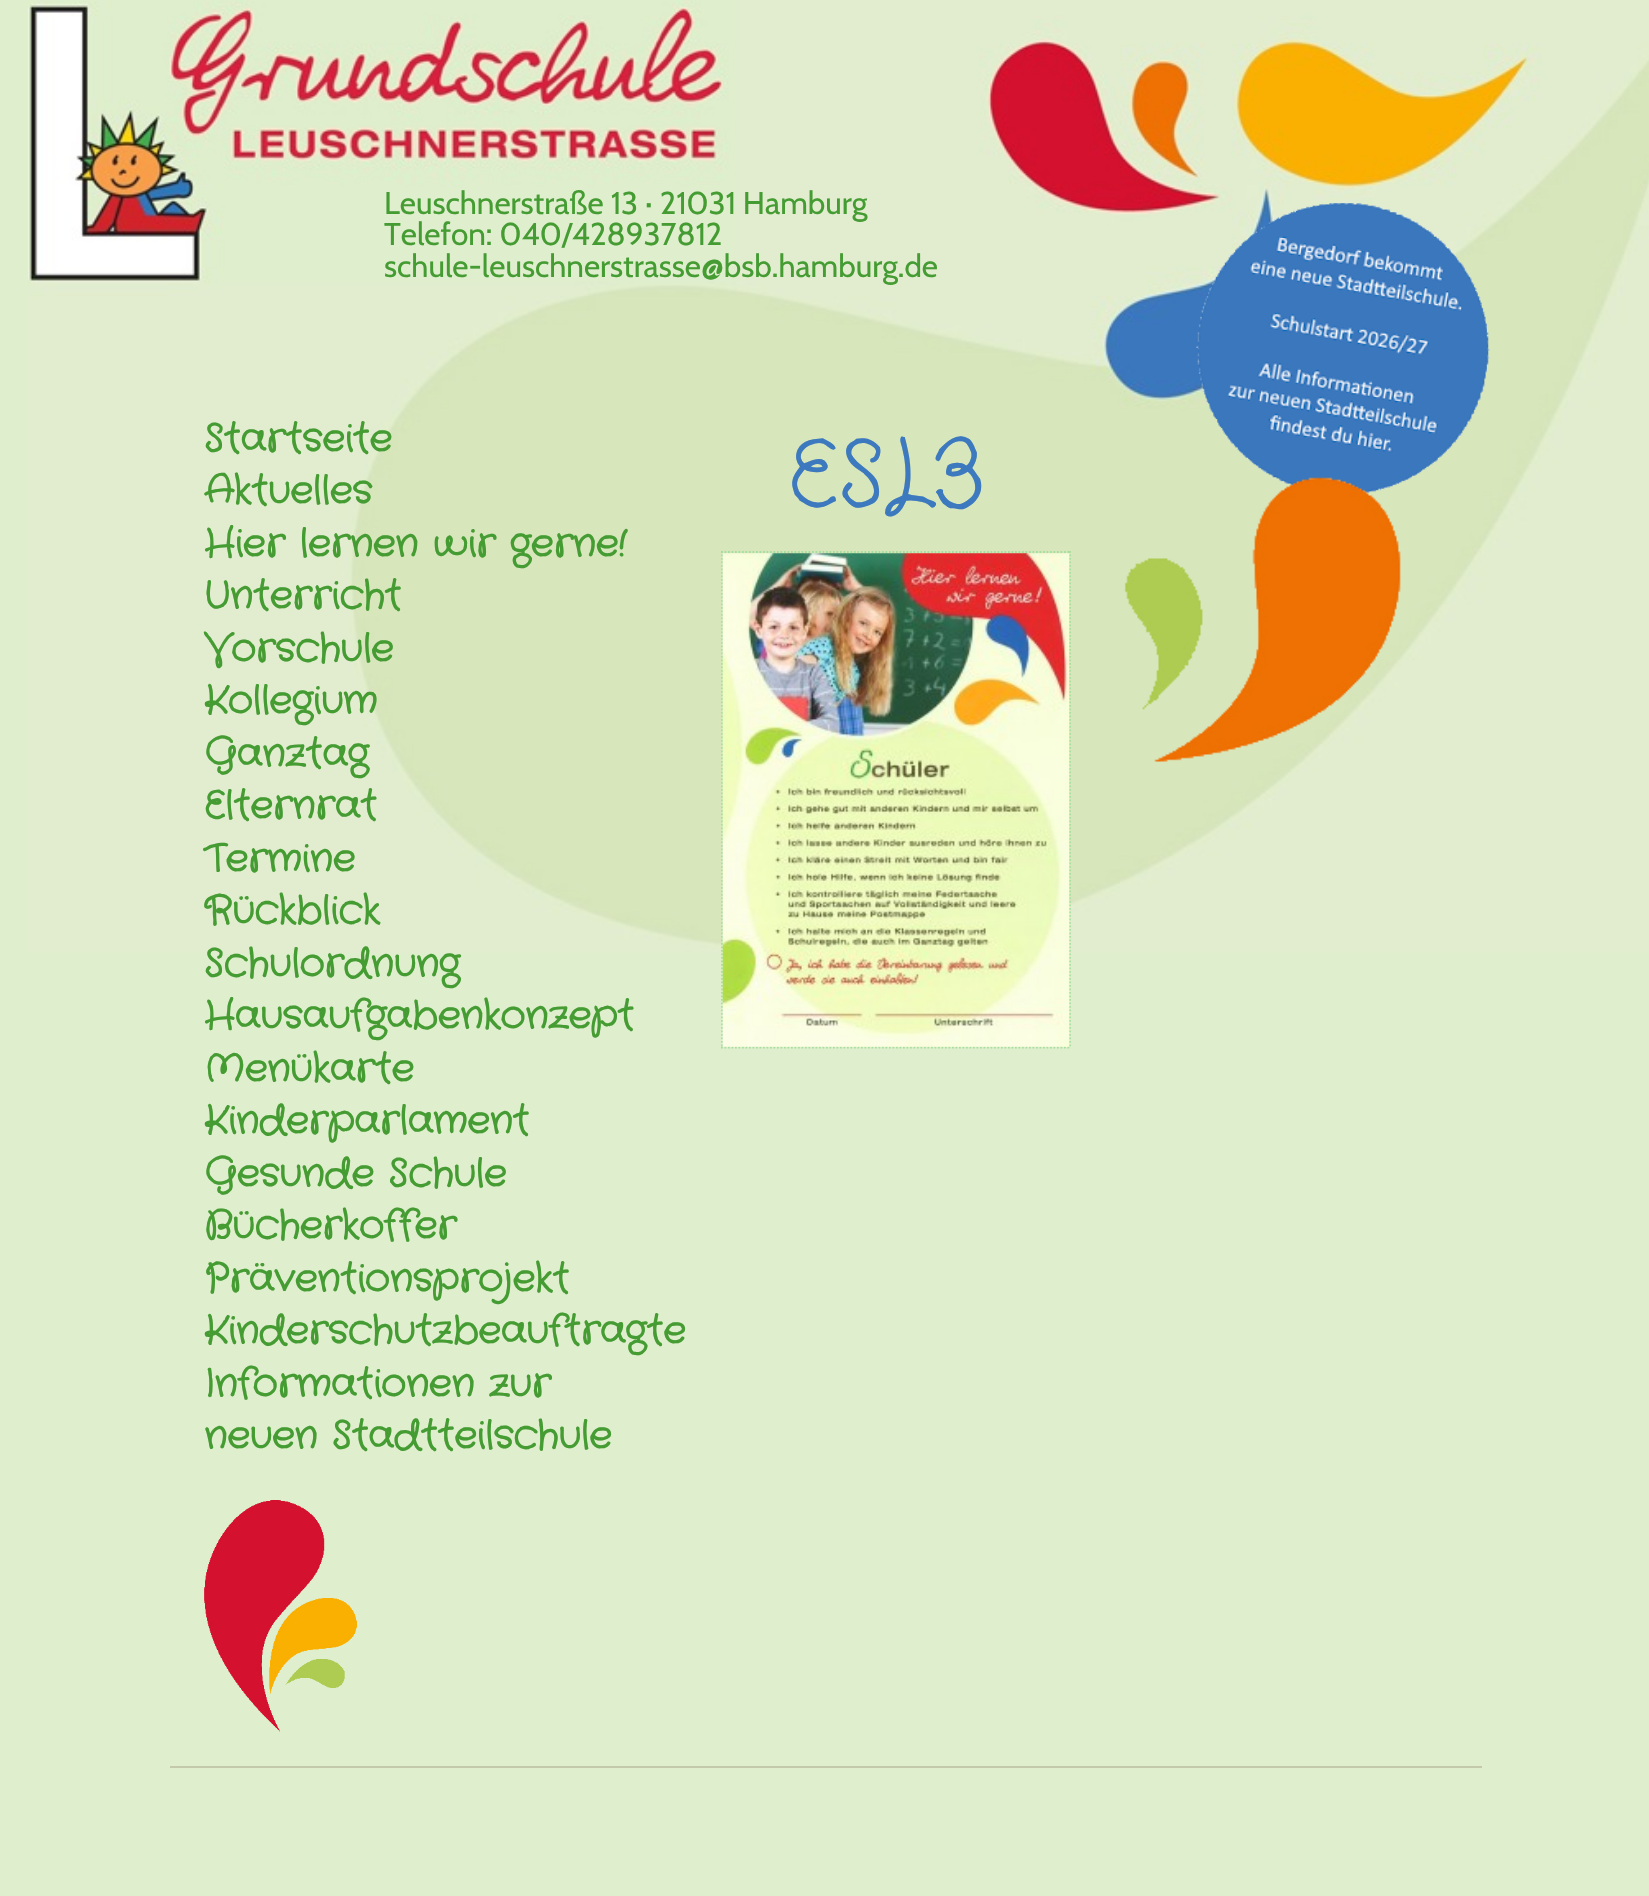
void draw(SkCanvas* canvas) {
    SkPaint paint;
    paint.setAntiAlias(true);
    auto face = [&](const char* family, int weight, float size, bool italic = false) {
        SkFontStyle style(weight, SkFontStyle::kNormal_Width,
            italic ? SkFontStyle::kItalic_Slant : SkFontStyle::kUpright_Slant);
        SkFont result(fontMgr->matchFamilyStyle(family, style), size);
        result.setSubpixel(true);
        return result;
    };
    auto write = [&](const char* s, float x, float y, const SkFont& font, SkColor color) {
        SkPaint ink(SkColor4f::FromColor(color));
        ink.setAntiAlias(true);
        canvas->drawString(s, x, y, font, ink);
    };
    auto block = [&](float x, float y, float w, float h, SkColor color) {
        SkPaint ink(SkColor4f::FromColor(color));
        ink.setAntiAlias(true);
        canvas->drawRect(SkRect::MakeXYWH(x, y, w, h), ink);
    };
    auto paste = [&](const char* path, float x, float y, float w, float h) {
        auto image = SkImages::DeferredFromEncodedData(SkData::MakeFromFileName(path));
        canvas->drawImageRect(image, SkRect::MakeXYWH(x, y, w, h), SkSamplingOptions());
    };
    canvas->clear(SkColorSetRGB(223, 238, 205));
    paste("pic1.png", 27, 0, 1622, 953);
    auto kFont1 = face("Cabin", 400, 31.5f);
    write("Leuschnerstraße 13 · 21031 Hamburg", 384, 214, kFont1, SkColorSetRGB(69, 156, 51));
    write("Telefon: 040/428 93 78 12", 384, 245, kFont1, SkColorSetRGB(69, 156, 51));
    write("schule-leuschnerstrasse@bsb.hamburg.de", 384, 277, kFont1, SkColorSetRGB(69, 156, 51));
    paste("pic2.png", 1196, 203, 294, 290);
    auto kFont2 = face("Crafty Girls", 700, 38.5f);
    write("Startseite", 204, 450, kFont2, SkColorSetRGB(69, 156, 51));
    write("Aktuelles", 204, 502, kFont2, SkColorSetRGB(69, 156, 51));
    write("Hier lernen wir gerne!", 204, 555, kFont2, SkColorSetRGB(69, 156, 51));
    write("Unterricht", 204, 607, kFont2, SkColorSetRGB(69, 156, 51));
    write("Vorschule", 204, 660, kFont2, SkColorSetRGB(69, 156, 51));
    write("Kollegium", 204, 712, kFont2, SkColorSetRGB(69, 156, 51));
    write("Ganztag", 204, 765, kFont2, SkColorSetRGB(69, 156, 51));
    write("Elternrat", 204, 817, kFont2, SkColorSetRGB(69, 156, 51));
    write("Termine", 204, 870, kFont2, SkColorSetRGB(69, 156, 51));
    write("Rückblick", 204, 922, kFont2, SkColorSetRGB(69, 156, 51));
    write("Schulordnung", 204, 975, kFont2, SkColorSetRGB(69, 156, 51));
    write("Hausaufgabenkonzept", 204, 1027, kFont2, SkColorSetRGB(69, 156, 51));
    write("Menükarte", 204, 1080, kFont2, SkColorSetRGB(69, 156, 51));
    write("Kinderparlament", 204, 1132, kFont2, SkColorSetRGB(69, 156, 51));
    write("Gesunde Schule", 204, 1185, kFont2, SkColorSetRGB(69, 156, 51));
    write("Bücherkoffer", 204, 1237, kFont2, SkColorSetRGB(69, 156, 51));
    write("Präventionsprojekt", 204, 1290, kFont2, SkColorSetRGB(69, 156, 51));
    write("Kinderschutzbeauftragte", 204, 1342, kFont2, SkColorSetRGB(69, 156, 51));
    write("Informationen zur", 204, 1395, kFont2, SkColorSetRGB(69, 156, 51));
    write("neuen Stadtteilschule", 204, 1447, kFont2, SkColorSetRGB(69, 156, 51));
    paste("pic3.png", 204, 1500, 153, 232);
    auto kFont3 = face("Crafty Girls", 400, 93);
    write("ESL3", 788, 502, kFont3, SkColorSetRGB(60, 121, 190));
    paint.setStyle(SkPaint::kStroke_Style);
    paint.setStrokeWidth(1.8f);
    paint.setColor(SkColorSetRGB(166, 223, 155));
    paint.setPathEffect(SkDashPathEffect::Make({{1.75f, 1.75f}}, 0));
    canvas->drawPath(SkPathBuilder().moveTo(721, 552).lineTo(1071, 552).detach(), paint);
    paint.setPathEffect(nullptr);
    paint.setPathEffect(SkDashPathEffect::Make({{1.75f, 1.75f}}, 0));
    canvas->drawPath(SkPathBuilder().moveTo(1070, 551).lineTo(1070, 1048).detach(), paint);
    paint.setPathEffect(nullptr);
    paint.setPathEffect(SkDashPathEffect::Make({{1.75f, 1.75f}}, 0));
    canvas->drawPath(SkPathBuilder().moveTo(721, 1047.5f).lineTo(1071, 1047.5f).detach(), paint);
    paint.setPathEffect(nullptr);
    paint.setPathEffect(SkDashPathEffect::Make({{1.75f, 1.75f}}, 0));
    canvas->drawPath(SkPathBuilder().moveTo(722, 551).lineTo(722, 1048).detach(), paint);
    paint.setPathEffect(nullptr);
    paste("pic4.png", 722, 553, 348, 494);
    paste("pic5.png", 1124, 477, 277, 285);
    block(170, 1766, 1312, 2, SkColorSetRGB(197, 201, 171));
}
